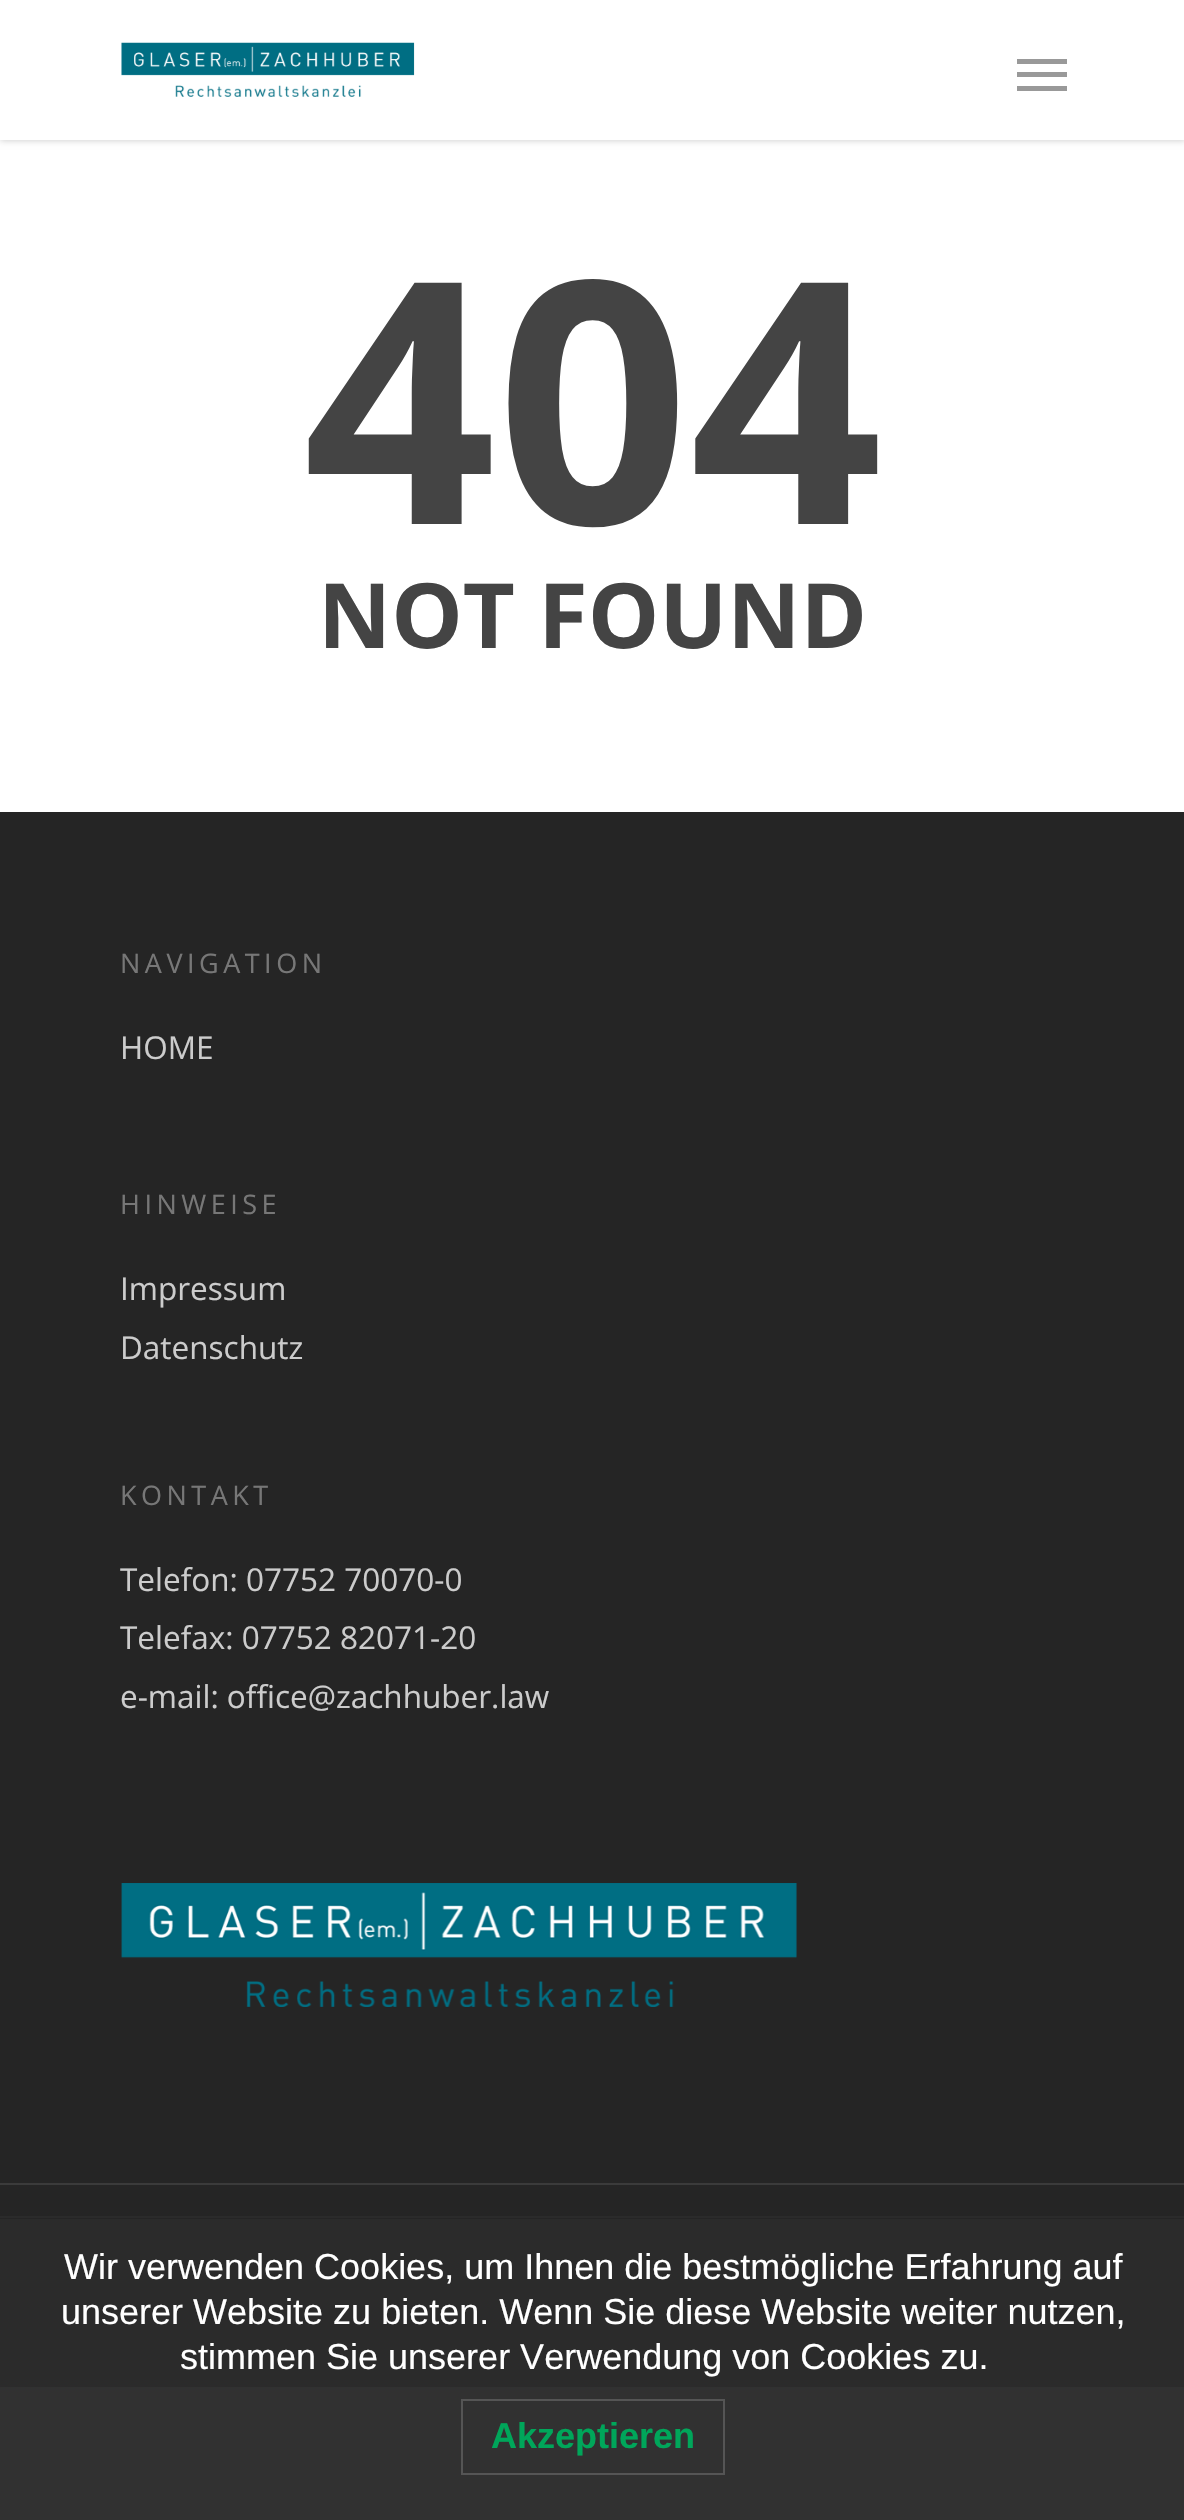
void draw(SkCanvas* canvas) {
    SkPaint paint;
    paint.setAntiAlias(true);
    auto face = [&](const char* family, int weight, float size, bool italic = false) {
        SkFontStyle style(weight, SkFontStyle::kNormal_Width,
            italic ? SkFontStyle::kItalic_Slant : SkFontStyle::kUpright_Slant);
        SkFont result(fontMgr->matchFamilyStyle(family, style), size);
        result.setSubpixel(true);
        return result;
    };
    auto write = [&](const char* s, float x, float y, const SkFont& font, SkColor color) {
        SkPaint ink(SkColor4f::FromColor(color));
        ink.setAntiAlias(true);
        canvas->drawString(s, x, y, font, ink);
    };
    auto writeSpaced = [&](const char* s, float x, float y, const SkFont& font, const SkPaint& ink, float letter, float word) {
        std::vector<SkGlyphID> glyphs(font.countText(s, strlen(s), SkTextEncoding::kUTF8));
        std::vector<float> xs(glyphs.size());
        font.textToGlyphs(s, strlen(s), SkTextEncoding::kUTF8, glyphs);
        font.getXPos(glyphs, xs, x);
        float extra = 0;
        for (size_t i = 0; i < glyphs.size(); i++) {
            xs[i] += extra;
            extra += letter + word * (glyphs[i] == font.unicharToGlyph(' '));
        }
        canvas->drawTextBlob(SkTextBlob::MakeFromPosHGlyphs(glyphs, xs, y, font), 0, 0, ink);
    };
    auto block = [&](float x, float y, float w, float h, SkColor color) {
        SkPaint ink(SkColor4f::FromColor(color));
        ink.setAntiAlias(true);
        canvas->drawRect(SkRect::MakeXYWH(x, y, w, h), ink);
    };
    auto paste = [&](const char* path, float x, float y, float w, float h) {
        auto image = SkImages::DeferredFromEncodedData(SkData::MakeFromFileName(path));
        canvas->drawImageRect(image, SkRect::MakeXYWH(x, y, w, h), SkSamplingOptions());
    };
    canvas->clear(SkColorSetRGB(49, 49, 49));
    block(0, 140, 1184, 672, SK_ColorWHITE);
    paint.setColor(SkColorSetARGB(56, 0, 0, 0));
    paint.setMaskFilter(SkMaskFilter::MakeBlur(kNormal_SkBlurStyle, 3.5f));
    canvas->drawRect(SkRect::MakeXYWH(0, 0, 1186, 140), paint);
    paint.setMaskFilter(nullptr);
    block(0, 0, 1184, 140, SK_ColorWHITE);
    paste("pic1.png", 121, 42, 294, 55);
    block(1017, 59, 50, 5, SkColorSetRGB(153, 153, 153));
    block(1017, 86, 50, 5, SkColorSetRGB(153, 153, 153));
    block(1017, 72, 50, 5, SkColorSetRGB(153, 153, 153));
    auto kFont1 = face("Open Sans", 700, 338);
    write("404", 303, 524, kFont1, SkColorSetRGB(68, 68, 68));
    auto kFont2 = face("Open Sans", 700, 90);
    write("NOT FOUND", 318, 648, kFont2, SkColorSetRGB(68, 68, 68));
    block(0, 812, 1184, 1407, SkColorSetRGB(37, 37, 37));
    block(0, 2219, 1184, 168, SkColorSetRGB(43, 43, 43));
    auto kFont3 = face("Open Sans", 400, 27);
    paint.setColor(SkColorSetRGB(119, 119, 119));
    writeSpaced("NAVIGATION", 120, 973, kFont3, paint, 4.5f, 0);
    auto kFont4 = face("Open Sans", 400, 31.5f);
    write("HOME", 120, 1059, kFont4, SkColorSetRGB(204, 204, 204));
    writeSpaced("HINWEISE", 120, 1214, kFont3, paint, 4.5f, 0);
    write("Impressum", 120, 1300, kFont4, SkColorSetRGB(204, 204, 204));
    write("Datenschutz", 120, 1359, kFont4, SkColorSetRGB(204, 204, 204));
    writeSpaced("KONTAKT", 120, 1505, kFont3, paint, 4.5f, 0);
    write("Telefon: 07752 70070-0", 120, 1591, kFont4, SkColorSetRGB(204, 204, 204));
    write("Telefax: 07752 82071-20", 120, 1649, kFont4, SkColorSetRGB(204, 204, 204));
    write("e-mail: office@zachhuber.law", 120, 1708, kFont4, SkColorSetRGB(204, 204, 204));
    paste("pic2.png", 121, 1883, 676, 124);
    block(0, 2183, 1184, 2, SkColorSetRGB(59, 59, 59));
    block(0, 2216, 1184, 2, SkColorSetRGB(43, 43, 43));
    auto kFont5 = face("Liberation Sans", 400, 36);
    write("Wir verwenden Cookies, um Ihnen die bestmögliche Erfahrung auf", 64, 2279, kFont5, SK_ColorWHITE);
    write("unserer Website zu bieten. Wenn Sie diese Website weiter nutzen,", 61, 2324, kFont5, SK_ColorWHITE);
    write("stimmen Sie unserer Verwendung von Cookies zu.", 180, 2369, kFont5, SK_ColorWHITE);
    paint.setStyle(SkPaint::kStroke_Style);
    paint.setStrokeWidth(2);
    paint.setColor(SkColorSetRGB(85, 85, 85));
    canvas->drawRect(SkRect::MakeXYWH(462, 2400, 262, 74), paint);
    auto kFont6 = face("Liberation Sans", 700, 36);
    write("Akzeptieren", 491, 2448, kFont6, SkColorSetRGB(0, 166, 90));
}
